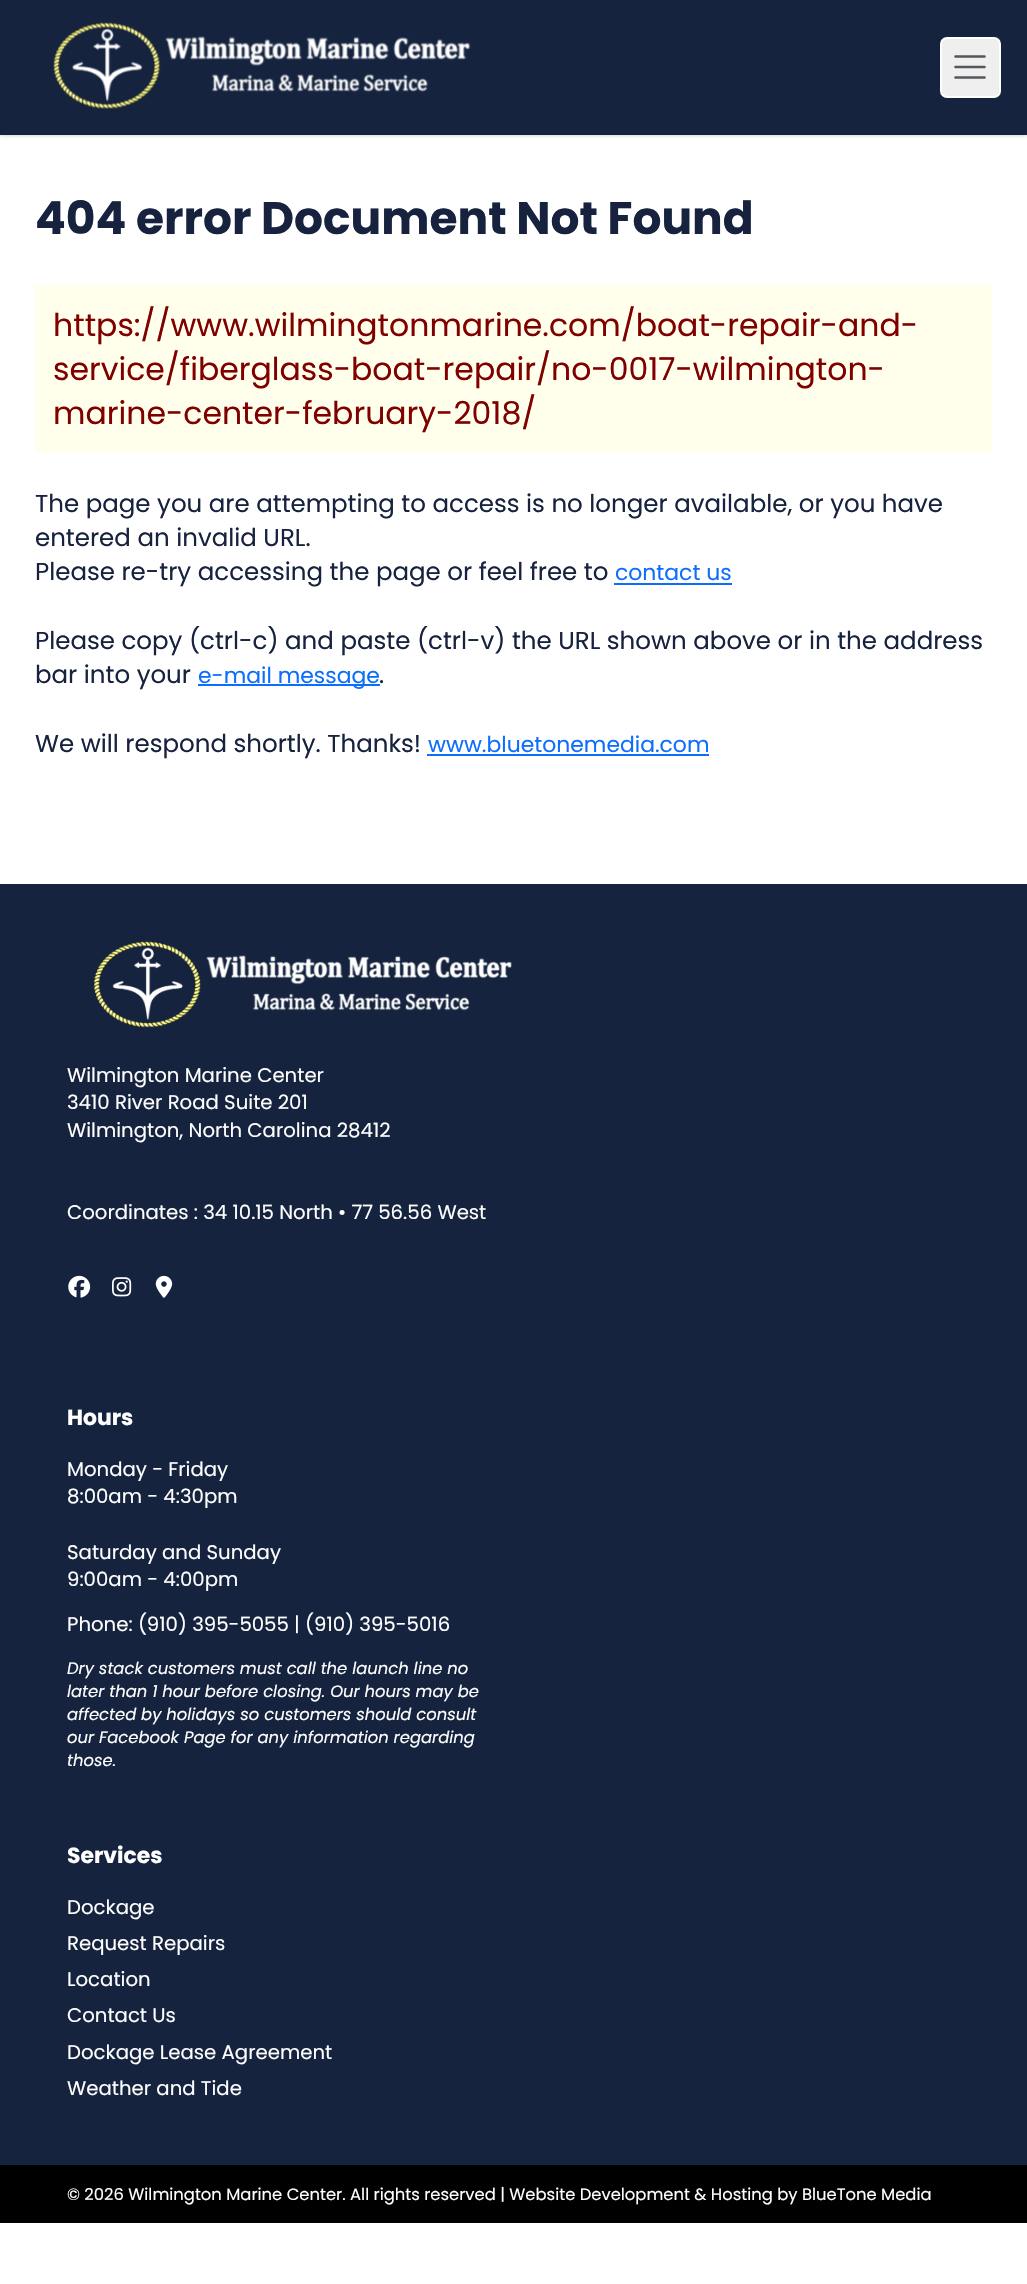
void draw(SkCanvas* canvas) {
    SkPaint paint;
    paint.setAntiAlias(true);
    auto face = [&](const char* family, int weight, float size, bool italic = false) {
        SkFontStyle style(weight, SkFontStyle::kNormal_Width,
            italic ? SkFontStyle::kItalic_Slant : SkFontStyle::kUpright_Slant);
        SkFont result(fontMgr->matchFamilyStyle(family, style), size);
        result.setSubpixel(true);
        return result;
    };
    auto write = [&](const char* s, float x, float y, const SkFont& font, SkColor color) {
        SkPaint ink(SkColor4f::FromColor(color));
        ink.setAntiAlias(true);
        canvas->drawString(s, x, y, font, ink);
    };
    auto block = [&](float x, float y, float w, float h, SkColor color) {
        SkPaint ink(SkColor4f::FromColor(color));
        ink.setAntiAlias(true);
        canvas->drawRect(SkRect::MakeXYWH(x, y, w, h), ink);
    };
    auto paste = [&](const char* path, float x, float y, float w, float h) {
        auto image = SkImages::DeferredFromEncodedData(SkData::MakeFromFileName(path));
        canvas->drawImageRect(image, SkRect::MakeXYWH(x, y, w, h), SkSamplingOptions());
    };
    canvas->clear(SK_ColorWHITE);
    paint.setColor(SkColorSetARGB(64, 0, 0, 0));
    paint.setMaskFilter(SkMaskFilter::MakeBlur(kNormal_SkBlurStyle, 2));
    canvas->drawRect(SkRect::MakeXYWH(0, 0, 1027, 135), paint);
    paint.setMaskFilter(nullptr);
    block(0, 0, 1027, 135, SkColorSetRGB(21, 35, 62));
    paste("pic1.png", 53, 22, 418, 87);
    paint.setColor(SkColorSetRGB(239, 239, 239));
    canvas->drawRoundRect(SkRect::MakeXYWH(941, 38, 59, 59), 6, 6, paint);
    paint.setStyle(SkPaint::kStroke_Style);
    paint.setStrokeWidth(2);
    paint.setColor(SK_ColorWHITE);
    canvas->drawRoundRect(SkRect::MakeXYWH(941, 38, 59, 59), 6, 6, paint);
    paint.setStrokeWidth(2.6f);
    paint.setStrokeCap(SkPaint::kRound_Cap);
    paint.setColor(SkColorSetRGB(85, 88, 91));
    canvas->drawPath(SkPathBuilder().moveTo(955.5f, 56.5f).lineTo(984.5f, 56.5f).moveTo(955.5f, 67).lineTo(984.5f, 67).moveTo(955.5f, 77.5f).lineTo(984.5f, 77.5f).detach(), paint);
    auto kFont1 = face("Poppins", 700, 45.5f);
    write("404 error Document Not Found", 35, 234, kFont1, SkColorSetRGB(22, 34, 62));
    block(35, 285, 957, 167, SkColorSetRGB(255, 255, 236));
    auto kFont2 = face("Poppins", 400, 31.5f);
    write("https://www.wilmingtonmarine.com/boat-repair-and-", 53, 336, kFont2, SkColorSetRGB(128, 0, 0));
    write("service/fiberglass-boat-repair/no-0017-wilmington-", 53, 380, kFont2, SkColorSetRGB(128, 0, 0));
    write("marine-center-february-2018/", 53, 424, kFont2, SkColorSetRGB(128, 0, 0));
    auto kFont3 = face("Poppins", 400, 24.5f);
    write("The page you are attempting to access is no longer available, or you have", 35, 512, kFont3, SkColorSetRGB(22, 34, 62));
    write("entered an invalid URL.", 35, 546, kFont3, SkColorSetRGB(22, 34, 62));
    write("Please re-try accessing the page or feel free to", 35, 580, kFont3, SkColorSetRGB(22, 34, 62));
    auto kFont4 = face("Poppins", 400, 21.9f);
    write("contact us", 615, 580, kFont4, SkColorSetRGB(13, 110, 253));
    block(614, 583, 118, 2, SkColorSetRGB(13, 110, 253));
    write("Please copy (ctrl-c) and paste (ctrl-v) the URL shown above or in the address", 35, 649, kFont3, SkColorSetRGB(22, 34, 62));
    write("bar into your", 35, 683, kFont3, SkColorSetRGB(22, 34, 62));
    block(198, 684, 182, 2, SkColorSetRGB(13, 110, 253));
    write("e-mail message", 198, 683, kFont4, SkColorSetRGB(13, 110, 253));
    write(".", 379, 683, kFont3, SkColorSetRGB(22, 34, 62));
    write("We will respond shortly. Thanks!", 35, 752, kFont3, SkColorSetRGB(22, 34, 62));
    write("www.bluetonemedia.com", 428, 752, kFont4, SkColorSetRGB(13, 110, 253));
    block(427, 754, 282, 2, SkColorSetRGB(13, 110, 253));
    block(0, 884, 1027, 1281, SkColorSetRGB(21, 35, 62));
    paste("pic2.png", 94, 941, 418, 87);
    auto kFont5 = face("Poppins", 400, 19.7f);
    write("Wilmington Marine Center", 67, 1082, kFont5, SK_ColorWHITE);
    write("3410 River Road Suite 201", 67, 1109, kFont5, SK_ColorWHITE);
    write("Wilmington, North Carolina 28412", 67, 1137, kFont5, SK_ColorWHITE);
    write("Coordinates : 34 10.15 North • 77 56.56 West", 67, 1219, kFont5, SK_ColorWHITE);
    paste("pic3.png", 68, 1275, 23, 23);
    paste("pic4.png", 112, 1277, 20, 20);
    paste("pic5.png", 155, 1275, 18, 23);
    auto kFont6 = face("Poppins", 700, 21.9f);
    write("Hours", 67, 1425, kFont6, SK_ColorWHITE);
    write("Monday - Friday", 67, 1476, kFont5, SK_ColorWHITE);
    write("8:00am - 4:30pm", 67, 1503, kFont5, SK_ColorWHITE);
    write("Saturday and Sunday", 67, 1559, kFont5, SK_ColorWHITE);
    write("9:00am - 4:00pm", 67, 1586, kFont5, SK_ColorWHITE);
    write("Phone: (910) 395-5055 | (910) 395-5016", 67, 1631, kFont5, SK_ColorWHITE);
    auto kFont7 = face("Poppins", 400, 16.4f, true);
    write("Dry stack customers must call the launch line no", 67, 1674, kFont7, SK_ColorWHITE);
    write("later than 1 hour before closing. Our hours may be", 67, 1697, kFont7, SK_ColorWHITE);
    write("affected by holidays so customers should consult", 67, 1720, kFont7, SK_ColorWHITE);
    write("our Facebook Page for any information regarding", 67, 1743, kFont7, SK_ColorWHITE);
    write("those.", 67, 1766, kFont7, SK_ColorWHITE);
    write("Services", 67, 1863, kFont6, SK_ColorWHITE);
    write("Dockage", 67, 1914, kFont5, SK_ColorWHITE);
    write("Request Repairs", 67, 1950, kFont5, SK_ColorWHITE);
    write("Location", 67, 1986, kFont5, SK_ColorWHITE);
    write("Contact Us", 67, 2022, kFont5, SK_ColorWHITE);
    write("Dockage Lease Agreement", 67, 2059, kFont5, SK_ColorWHITE);
    write("Weather and Tide", 67, 2095, kFont5, SK_ColorWHITE);
    block(0, 2165, 1027, 58, SK_ColorBLACK);
    auto kFont8 = face("Poppins", 400, 16.4f);
    write("© 2026 Wilmington Marine Center. All rights reserved | Website Development & Hosting by BlueTone Media", 67, 2200, kFont8, SK_ColorWHITE);
}
